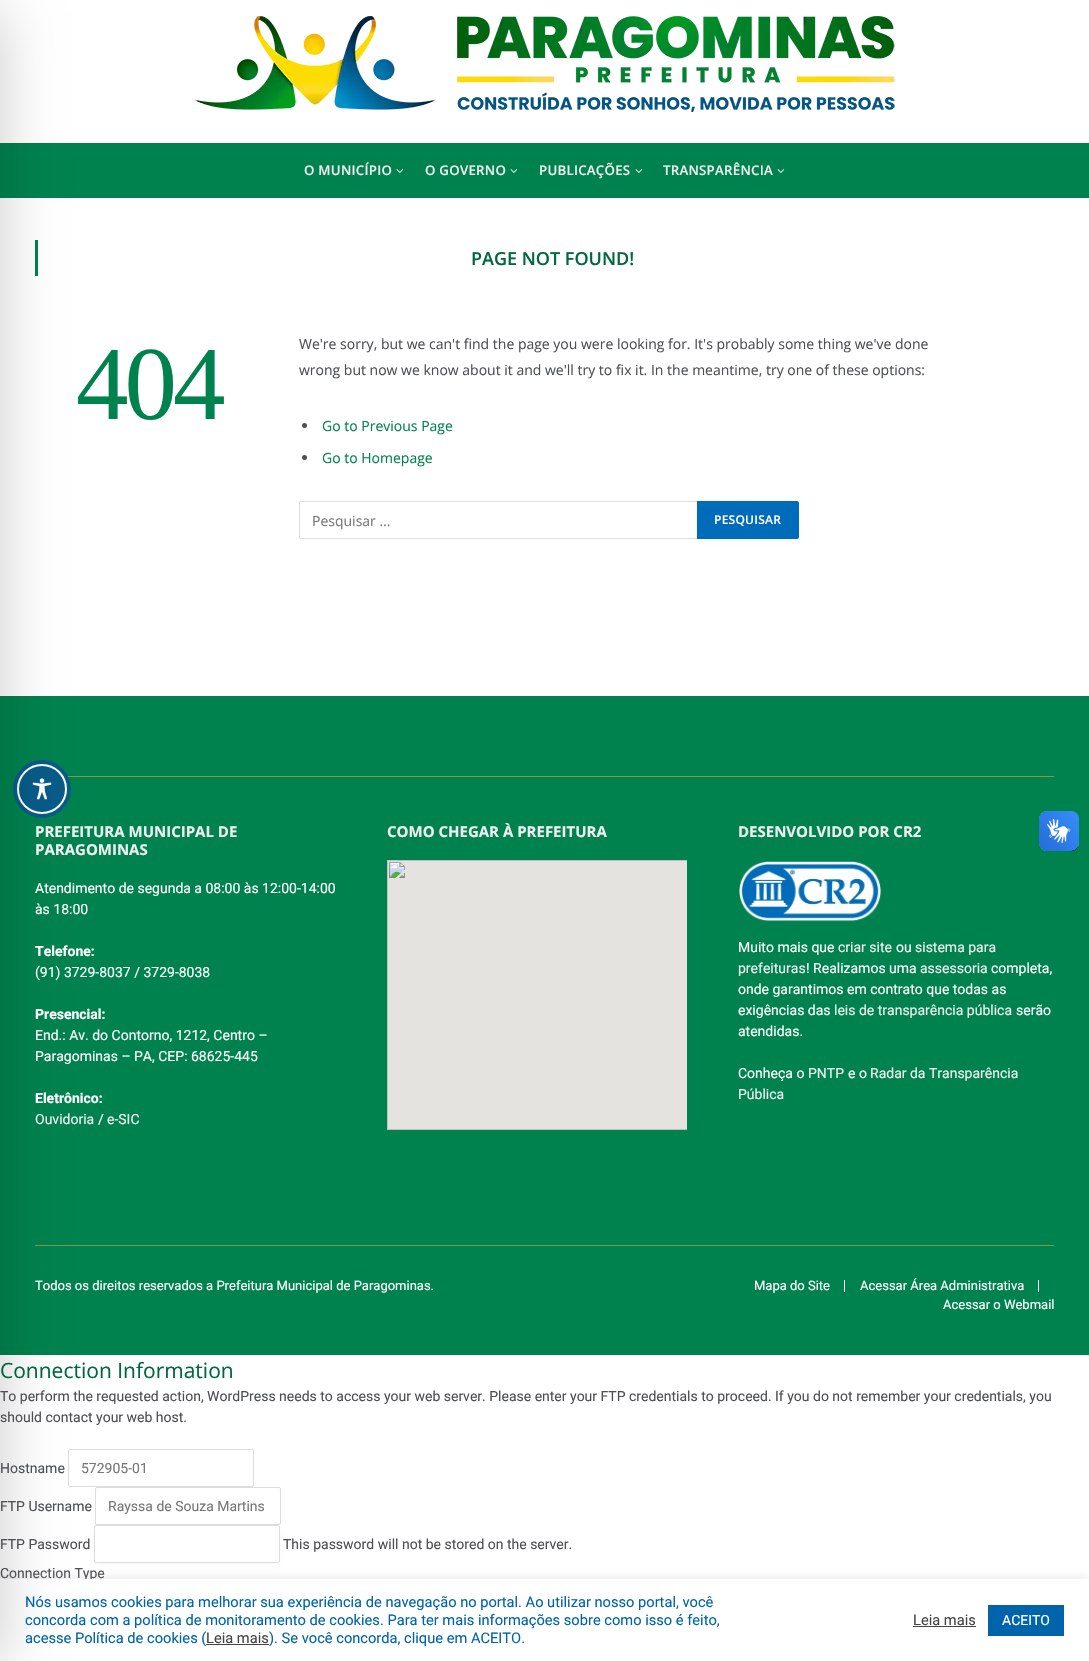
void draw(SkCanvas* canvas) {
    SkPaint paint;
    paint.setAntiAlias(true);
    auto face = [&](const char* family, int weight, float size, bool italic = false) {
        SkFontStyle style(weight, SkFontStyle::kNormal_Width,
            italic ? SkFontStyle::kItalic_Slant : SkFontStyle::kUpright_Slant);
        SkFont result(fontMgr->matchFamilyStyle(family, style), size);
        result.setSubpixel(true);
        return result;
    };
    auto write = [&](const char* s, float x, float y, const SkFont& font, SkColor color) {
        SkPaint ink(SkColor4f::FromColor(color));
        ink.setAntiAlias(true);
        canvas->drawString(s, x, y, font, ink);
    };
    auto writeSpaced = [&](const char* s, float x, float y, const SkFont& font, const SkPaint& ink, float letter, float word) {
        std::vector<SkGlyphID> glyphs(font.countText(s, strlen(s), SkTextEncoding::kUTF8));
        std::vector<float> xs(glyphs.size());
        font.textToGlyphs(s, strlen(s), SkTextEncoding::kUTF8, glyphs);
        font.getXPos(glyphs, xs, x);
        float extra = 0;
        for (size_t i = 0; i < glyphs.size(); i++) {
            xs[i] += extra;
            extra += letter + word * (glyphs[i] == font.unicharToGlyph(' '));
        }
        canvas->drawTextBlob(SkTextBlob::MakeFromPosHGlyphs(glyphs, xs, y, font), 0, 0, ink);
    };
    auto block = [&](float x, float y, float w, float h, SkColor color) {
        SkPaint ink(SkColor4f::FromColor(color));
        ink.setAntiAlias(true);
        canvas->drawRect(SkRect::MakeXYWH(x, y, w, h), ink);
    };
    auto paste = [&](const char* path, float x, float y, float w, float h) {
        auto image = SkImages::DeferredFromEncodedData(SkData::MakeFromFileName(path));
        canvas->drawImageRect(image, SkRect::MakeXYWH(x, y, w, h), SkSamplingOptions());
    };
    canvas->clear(SK_ColorWHITE);
    block(0, 143, 1089, 55, SkColorSetRGB(0, 130, 78));
    block(35, 240, 3, 36, SkColorSetRGB(0, 130, 78));
    block(0, 696, 1089, 659, SkColorSetRGB(0, 130, 78));
    block(63, 776, 991, 1, SkColorSetRGB(133, 151, 63));
    paint.setStyle(SkPaint::kStroke_Style);
    paint.setStrokeWidth(4);
    paint.setColor(SkColorSetRGB(8, 91, 136));
    canvas->drawCircle(42, 789, 27, paint);
    paint.setStyle(SkPaint::kFill_Style);
    canvas->drawCircle(42, 789, 24, paint);
    paint.setStyle(SkPaint::kStroke_Style);
    paint.setStrokeWidth(2);
    paint.setColor(SK_ColorWHITE);
    canvas->drawCircle(42, 789, 24, paint);
    paste("pic3.png", 32, 778, 20, 22);
    block(35, 1245, 1019, 1, SkColorSetRGB(133, 151, 63));
    paint.setStrokeWidth(1);
    paint.setColor(SkColorSetRGB(221, 221, 221));
    canvas->drawRoundRect(SkRect::MakeXYWH(68.5f, 1449.5f, 185, 37), 1.5f, 1.5f, paint);
    canvas->drawRoundRect(SkRect::MakeXYWH(95.5f, 1487.5f, 185, 37), 1.5f, 1.5f, paint);
    paint.setStyle(SkPaint::kFill_Style);
    paint.setColor(SkColorSetARGB(26, 0, 0, 0));
    paint.setMaskFilter(SkMaskFilter::MakeBlur(kNormal_SkBlurStyle, 3.5f));
    canvas->drawRect(SkRect::MakeXYWH(98, 1531, 178, 30), paint);
    paint.setMaskFilter(nullptr);
    auto kFont1 = face("Roboto", 400, 14);
    write("Connection Type", 0, 1578, kFont1, SkColorSetRGB(77, 80, 83));
    paint.setColor(SK_ColorWHITE);
    canvas->drawRoundRect(SkRect::MakeXYWH(94.5f, 1525.5f, 185, 37), 1.5f, 1.5f, paint);
    paint.setStyle(SkPaint::kStroke_Style);
    paint.setColor(SkColorSetRGB(221, 221, 221));
    canvas->drawRoundRect(SkRect::MakeXYWH(94.5f, 1525.5f, 185, 37), 1.5f, 1.5f, paint);
    paint.setStyle(SkPaint::kFill_Style);
    paint.setColor(SkColorSetARGB(77, 172, 171, 171));
    paint.setMaskFilter(SkMaskFilter::MakeBlur(kNormal_SkBlurStyle, 5));
    canvas->drawRect(SkRect::MakeXYWH(0, 1578, 1089, 82), paint);
    paint.setMaskFilter(nullptr);
    block(0, 1579, 1089, 82, SK_ColorWHITE);
    paint.setColor(SkColorSetARGB(51, 0, 0, 0));
    paint.setMaskFilter(SkMaskFilter::MakeBlur(kNormal_SkBlurStyle, 30));
    canvas->drawRect(SkRect::MakeXYWH(-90, 10, 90, 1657), paint);
    paint.setMaskFilter(nullptr);
    paste("pic1.png", 195, 16, 700, 96);
    auto kFont2 = face("Open Sans", 600, 13.25f);
    paint.setColor(SkColorSetRGB(240, 240, 240));
    writeSpaced("O MUNICÍPIO", 304, 175, kFont2, paint, 0.25f, 0);
    paste("pic2.png", 396, 169, 8, 4);
    writeSpaced("O GOVERNO", 425, 175, kFont2, paint, 0.25f, 0);
    paste("pic2.png", 510, 169, 8, 4);
    writeSpaced("PUBLICAÇÕES", 539, 175, kFont2, paint, 0.25f, 0);
    paste("pic2.png", 635, 169, 8, 4);
    writeSpaced("TRANSPARÊNCIA", 663, 175, kFont2, paint, 0.25f, 0);
    paste("pic2.png", 777, 169, 8, 4);
    auto kFont3 = face("Open Sans", 600, 18);
    write("PAGE NOT FOUND!", 471, 265, kFont3, SkColorSetRGB(0, 104, 62));
    auto kFont4 = face("Liberation Serif", 400, 105);
    paint.setColor(SkColorSetRGB(0, 130, 78));
    writeSpaced("404", 76, 419, kFont4, paint, -4, 0);
    auto kFont5 = face("Open Sans", 400, 14);
    write("We're sorry, but we can't find the page you were looking for. It's probably some thing we've done", 299, 349, kFont5, SkColorSetRGB(77, 80, 83));
    write("wrong but now we know about it and we'll try to fix it. In the meantime, try one of these options:", 299, 375, kFont5, SkColorSetRGB(77, 80, 83));
    paint.setColor(SkColorSetRGB(77, 80, 83));
    canvas->drawCircle(304.5f, 425.5f, 2.5f, paint);
    write("Go to Previous Page", 322, 431, kFont5, SkColorSetRGB(0, 130, 78));
    canvas->drawCircle(304.5f, 457.5f, 2.5f, paint);
    write("Go to Homepage", 322, 463, kFont5, SkColorSetRGB(0, 130, 78));
    paint.setStyle(SkPaint::kStroke_Style);
    paint.setColor(SkColorSetRGB(221, 221, 221));
    canvas->drawRoundRect(SkRect::MakeXYWH(299.5f, 501.5f, 399, 37), 1.5f, 1.5f, paint);
    write("Pesquisar …", 312, 526, kFont5, SkColorSetRGB(119, 119, 119));
    paint.setStyle(SkPaint::kFill_Style);
    paint.setColor(SkColorSetARGB(41, 0, 0, 0));
    paint.setMaskFilter(SkMaskFilter::MakeBlur(kNormal_SkBlurStyle, 3.5f));
    canvas->drawRect(SkRect::MakeXYWH(701, 507, 94, 30), paint);
    paint.setMaskFilter(nullptr);
    paint.setColor(SkColorSetRGB(0, 107, 185));
    canvas->drawPath(SkPathBuilder().moveTo(697, 501).lineTo(797, 501).cubicTo(798, 501, 799, 502, 799, 503).lineTo(799, 537).cubicTo(799, 538, 798, 539, 797, 539).lineTo(697, 539).close().detach(), paint);
    auto kFont6 = face("Open Sans", 600, 12);
    paint.setColor(SK_ColorWHITE);
    writeSpaced("PESQUISAR", 714, 524, kFont6, paint, 0.25f, 0);
    auto kFont7 = face("Open Sans", 700, 15);
    write("PREFEITURA MUNICIPAL DE", 35, 837, kFont7, SkColorSetRGB(240, 240, 240));
    write("PARAGOMINAS", 35, 855, kFont7, SkColorSetRGB(240, 240, 240));
    write("Atendimento de segunda a 08:00 às 12:00-14:00", 35, 893, kFont1, SK_ColorWHITE);
    write("às 18:00", 35, 914, kFont1, SK_ColorWHITE);
    auto kFont8 = face("Roboto", 700, 14);
    write("Telefone:", 35, 956, kFont8, SK_ColorWHITE);
    write("(91) 3729-8037 / 3729-8038", 35, 977, kFont1, SK_ColorWHITE);
    write("Presencial:", 35, 1019, kFont8, SK_ColorWHITE);
    write("End.: Av. do Contorno, 1212, Centro –", 35, 1040, kFont1, SK_ColorWHITE);
    write("Paragominas – PA, CEP: 68625-445", 35, 1061, kFont1, SK_ColorWHITE);
    write("Eletrônico:", 35, 1103, kFont8, SK_ColorWHITE);
    write("Ouvidoria", 35, 1124, kFont1, SkColorSetRGB(240, 240, 240));
    write("/", 98, 1124, kFont1, SK_ColorWHITE);
    write("e-SIC", 107, 1124, kFont1, SkColorSetRGB(240, 240, 240));
    write("COMO CHEGAR À PREFEITURA", 387, 837, kFont7, SkColorSetRGB(240, 240, 240));
    paste("pic4.png", 387, 860, 300, 270);
    write("DESENVOLVIDO POR CR2", 738, 837, kFont7, SkColorSetRGB(240, 240, 240));
    paste("pic5.png", 739, 861, 143, 61);
    write("Muito mais que", 738, 952, kFont1, SK_ColorWHITE);
    write("criar site", 838, 952, kFont1, SkColorSetRGB(240, 240, 240));
    write("ou", 896, 952, kFont1, SK_ColorWHITE);
    write("sistema para", 915, 952, kFont1, SkColorSetRGB(240, 240, 240));
    write("prefeituras", 738, 973, kFont1, SkColorSetRGB(240, 240, 240));
    write("! Realizamos uma", 806, 973, kFont1, SK_ColorWHITE);
    write("assessoria", 920, 973, kFont1, SkColorSetRGB(240, 240, 240));
    write("completa,", 991, 973, kFont1, SK_ColorWHITE);
    write("onde garantimos em contrato que todas as", 738, 994, kFont1, SK_ColorWHITE);
    write("exigências das", 738, 1015, kFont1, SK_ColorWHITE);
    write("leis de transparência pública", 834, 1015, kFont1, SkColorSetRGB(240, 240, 240));
    write("serão", 1016, 1015, kFont1, SK_ColorWHITE);
    write("atendidas.", 738, 1036, kFont1, SK_ColorWHITE);
    write("Conheça o", 738, 1078, kFont1, SK_ColorWHITE);
    write("PNTP", 808, 1078, kFont1, SkColorSetRGB(240, 240, 240));
    write("e o", 848, 1078, kFont1, SK_ColorWHITE);
    write("Radar da Transparência", 870, 1078, kFont1, SkColorSetRGB(240, 240, 240));
    write("Pública", 738, 1099, kFont1, SkColorSetRGB(240, 240, 240));
    auto kFont9 = face("Roboto", 400, 13);
    write("Todos os direitos reservados a Prefeitura Municipal de Paragominas.", 35, 1290, kFont9, SK_ColorWHITE);
    write("Mapa do Site", 754, 1290, kFont9, SK_ColorWHITE);
    block(844, 1280, 1, 12, SK_ColorWHITE);
    write("Acessar Área Administrativa", 860, 1290, kFont9, SK_ColorWHITE);
    block(1038, 1280, 1, 12, SK_ColorWHITE);
    write("Acessar o Webmail", 943, 1309, kFont9, SK_ColorWHITE);
    paste("pic6.png", 1039, 811, 40, 40);
    paste("pic7.png", 1039, 811, 40, 40);
    auto kFont10 = face("Open Sans", 400, 21);
    write("Connection Information", 0, 1378, kFont10, SkColorSetRGB(0, 104, 62));
    write("To perform the requested action, WordPress needs to access your web server. Please enter your FTP credentials to proceed. If you do not remember your credentials, you", 0, 1401, kFont1, SkColorSetRGB(77, 80, 83));
    write("should contact your web host.", 0, 1422, kFont1, SkColorSetRGB(77, 80, 83));
    write("Hostname", 0, 1473, kFont1, SkColorSetRGB(77, 80, 83));
    write("572905-01", 81, 1473, kFont1, SkColorSetRGB(119, 119, 119));
    write("FTP Username", 0, 1511, kFont1, SkColorSetRGB(77, 80, 83));
    write("Rayssa de Souza Martins", 108, 1511, kFont1, SkColorSetRGB(119, 119, 119));
    write("FTP Password", 0, 1549, kFont1, SkColorSetRGB(77, 80, 83));
    write("This password will not be stored on the server.", 283, 1549, kFont1, SkColorSetRGB(77, 80, 83));
    auto kFont11 = face("Roboto", 400, 14.65f);
    write("Nós usamos cookies para melhorar sua experiência de navegação no portal. Ao utilizar nosso portal, você", 25, 1607, kFont11, SkColorSetRGB(0, 100, 171));
    write("concorda com a política de monitoramento de cookies. Para ter mais informações sobre como isso é feito,", 25, 1625, kFont11, SkColorSetRGB(0, 100, 171));
    write("acesse Política de cookies (", 25, 1643, kFont11, SkColorSetRGB(0, 100, 171));
    write("Leia mais", 206, 1643, kFont11, SkColorSetRGB(68, 68, 68));
    block(206, 1644, 63, 1, SkColorSetRGB(68, 68, 68));
    write("). Se você concorda, clique em ACEITO.", 269, 1643, kFont11, SkColorSetRGB(0, 100, 171));
    write("Leia mais", 913, 1625, kFont11, SkColorSetRGB(68, 68, 68));
    block(913, 1626, 63, 1, SkColorSetRGB(68, 68, 68));
    block(988, 1605, 76, 31, SkColorSetRGB(0, 100, 171));
    write("ACEITO", 1002, 1625, kFont1, SK_ColorWHITE);
}
